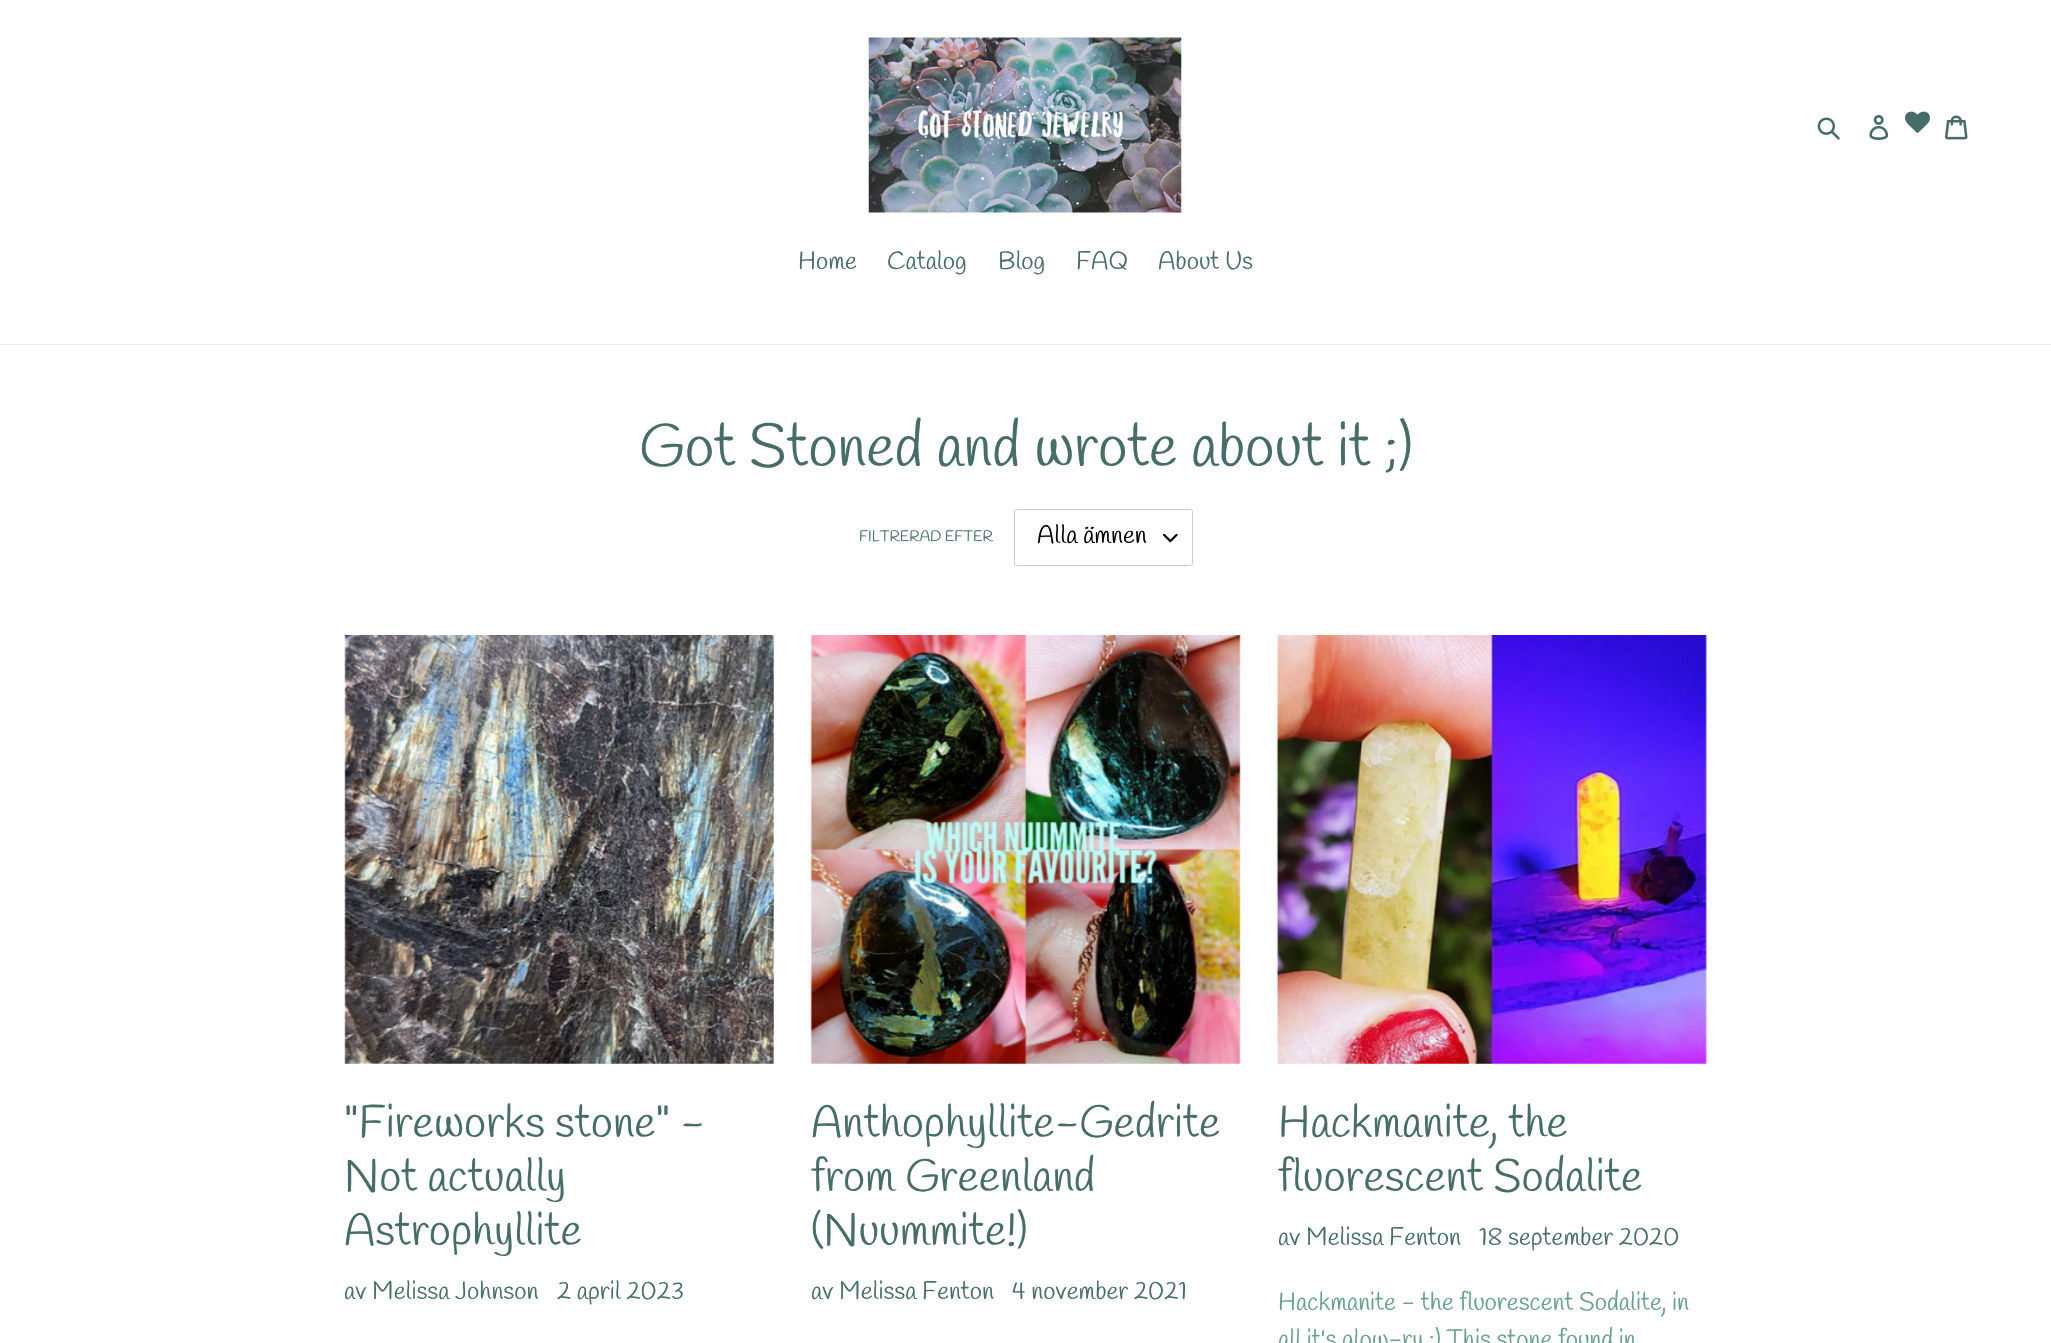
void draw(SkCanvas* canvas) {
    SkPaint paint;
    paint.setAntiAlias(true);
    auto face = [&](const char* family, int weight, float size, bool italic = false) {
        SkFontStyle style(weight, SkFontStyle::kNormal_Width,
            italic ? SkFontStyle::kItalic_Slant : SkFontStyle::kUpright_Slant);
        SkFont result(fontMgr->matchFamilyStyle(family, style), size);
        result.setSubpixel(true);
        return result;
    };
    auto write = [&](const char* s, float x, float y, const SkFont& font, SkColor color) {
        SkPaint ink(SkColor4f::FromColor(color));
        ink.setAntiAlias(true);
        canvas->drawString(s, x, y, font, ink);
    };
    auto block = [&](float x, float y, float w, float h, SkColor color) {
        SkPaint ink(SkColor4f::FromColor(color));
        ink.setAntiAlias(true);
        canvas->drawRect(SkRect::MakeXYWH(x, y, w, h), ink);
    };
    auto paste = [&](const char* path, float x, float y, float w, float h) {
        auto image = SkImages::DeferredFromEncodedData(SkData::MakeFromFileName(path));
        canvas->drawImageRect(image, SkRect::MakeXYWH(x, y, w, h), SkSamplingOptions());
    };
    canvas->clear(SK_ColorWHITE);
    paste("pic1.png", 868, 37, 314, 176);
    paste("pic2.png", 1817, 117, 23, 23);
    paste("pic3.png", 1869, 115, 20, 25);
    paste("pic4.png", 1905, 111, 25, 22);
    paste("pic5.png", 1945, 115, 23, 25);
    block(0, 344, 2051, 1, SkColorSetRGB(235, 235, 235));
    auto kFont1 = face("Handlee", 400, 25);
    write("Home", 798, 269, kFont1, SkColorSetRGB(71, 109, 104));
    write("Catalog", 887, 269, kFont1, SkColorSetRGB(71, 109, 104));
    write("Blog", 998, 269, kFont1, SkColorSetRGB(71, 109, 104));
    write("FAQ", 1076, 269, kFont1, SkColorSetRGB(71, 109, 104));
    write("About Us", 1158, 269, kFont1, SkColorSetRGB(71, 109, 104));
    auto kFont2 = face("Handlee", 400, 60);
    write("Got Stoned and wrote about it ;)", 639, 466, kFont2, SkColorSetRGB(71, 109, 104));
    auto kFont3 = face("Handlee", 400, 15);
    write("FILTRERAD EFTER", 859, 541, kFont3, SkColorSetRGB(71, 109, 104));
    paste("pic6.png", 1163, 533, 15, 10);
    paint.setStyle(SkPaint::kStroke_Style);
    paint.setStrokeWidth(1);
    paint.setColor(SkColorSetRGB(204, 204, 204));
    canvas->drawRoundRect(SkRect::MakeXYWH(1014.5f, 509.5f, 178, 56), 2, 2, paint);
    write("Alla ämnen", 1037, 543, kFont1, SK_ColorBLACK);
    paste("pic7.png", 344, 635, 430, 429);
    auto kFont4 = face("Handlee", 400, 45);
    write("\"Fireworks stone\" -", 344, 1137, kFont4, SkColorSetRGB(71, 109, 104));
    write("Not actually", 344, 1191, kFont4, SkColorSetRGB(71, 109, 104));
    write("Astrophyllite", 344, 1245, kFont4, SkColorSetRGB(71, 109, 104));
    write("av Melissa Johnson", 344, 1299, kFont1, SkColorSetRGB(71, 109, 104));
    write("2 april 2023", 557, 1299, kFont1, SkColorSetRGB(71, 109, 104));
    paste("pic8.png", 810, 635, 431, 429);
    write("Anthophyllite-Gedrite", 811, 1137, kFont4, SkColorSetRGB(71, 109, 104));
    write("from Greenland", 811, 1191, kFont4, SkColorSetRGB(71, 109, 104));
    write("(Nuummite!)", 811, 1245, kFont4, SkColorSetRGB(71, 109, 104));
    write("av Melissa Fenton", 811, 1299, kFont1, SkColorSetRGB(71, 109, 104));
    write("4 november 2021", 1012, 1299, kFont1, SkColorSetRGB(71, 109, 104));
    paste("pic9.png", 1276, 635, 431, 429);
    write("Hackmanite, the", 1278, 1137, kFont4, SkColorSetRGB(71, 109, 104));
    write("fluorescent Sodalite", 1278, 1191, kFont4, SkColorSetRGB(71, 109, 104));
    write("av Melissa Fenton", 1278, 1245, kFont1, SkColorSetRGB(71, 109, 104));
    write("18 september 2020", 1479, 1245, kFont1, SkColorSetRGB(71, 109, 104));
    write("Hackmanite - the fluorescent Sodalite, in", 1278, 1310, kFont1, SkColorSetRGB(103, 161, 138));
    write("all it's glow-ry ;) This stone found in", 1278, 1347, kFont1, SkColorSetRGB(103, 161, 138));
}
